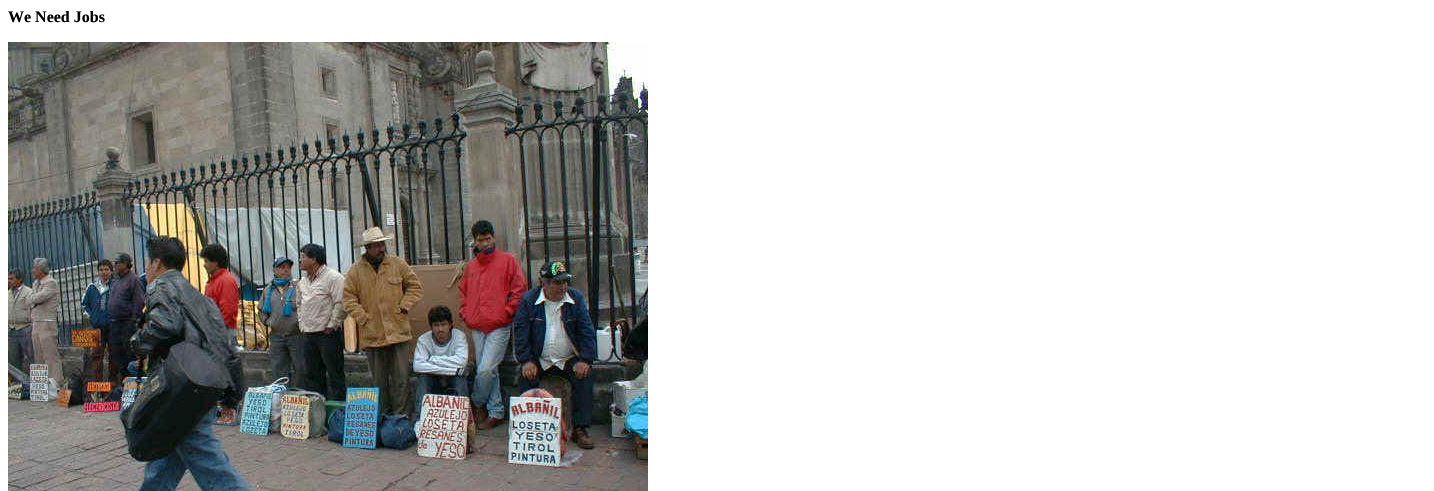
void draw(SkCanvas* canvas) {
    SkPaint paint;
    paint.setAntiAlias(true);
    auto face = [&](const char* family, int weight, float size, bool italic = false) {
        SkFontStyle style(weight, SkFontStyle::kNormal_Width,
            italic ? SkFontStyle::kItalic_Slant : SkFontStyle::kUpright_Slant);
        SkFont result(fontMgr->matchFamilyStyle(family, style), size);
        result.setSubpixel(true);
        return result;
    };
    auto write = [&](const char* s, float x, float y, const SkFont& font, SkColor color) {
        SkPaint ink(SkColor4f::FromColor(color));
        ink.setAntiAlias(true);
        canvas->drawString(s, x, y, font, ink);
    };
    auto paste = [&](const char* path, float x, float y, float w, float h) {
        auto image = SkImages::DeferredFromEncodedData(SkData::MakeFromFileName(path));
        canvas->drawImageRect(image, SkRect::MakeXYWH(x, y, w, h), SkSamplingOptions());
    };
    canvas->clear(SK_ColorWHITE);
    auto kFont1 = face("Liberation Serif", 700, 16);
    write("We Need Jobs", 8, 22, kFont1, SK_ColorBLACK);
    paste("pic1.png", 8, 42, 640, 449);
}
